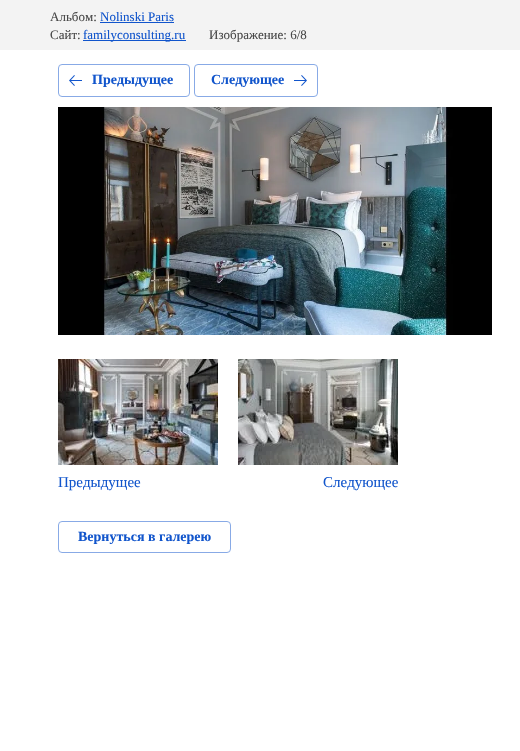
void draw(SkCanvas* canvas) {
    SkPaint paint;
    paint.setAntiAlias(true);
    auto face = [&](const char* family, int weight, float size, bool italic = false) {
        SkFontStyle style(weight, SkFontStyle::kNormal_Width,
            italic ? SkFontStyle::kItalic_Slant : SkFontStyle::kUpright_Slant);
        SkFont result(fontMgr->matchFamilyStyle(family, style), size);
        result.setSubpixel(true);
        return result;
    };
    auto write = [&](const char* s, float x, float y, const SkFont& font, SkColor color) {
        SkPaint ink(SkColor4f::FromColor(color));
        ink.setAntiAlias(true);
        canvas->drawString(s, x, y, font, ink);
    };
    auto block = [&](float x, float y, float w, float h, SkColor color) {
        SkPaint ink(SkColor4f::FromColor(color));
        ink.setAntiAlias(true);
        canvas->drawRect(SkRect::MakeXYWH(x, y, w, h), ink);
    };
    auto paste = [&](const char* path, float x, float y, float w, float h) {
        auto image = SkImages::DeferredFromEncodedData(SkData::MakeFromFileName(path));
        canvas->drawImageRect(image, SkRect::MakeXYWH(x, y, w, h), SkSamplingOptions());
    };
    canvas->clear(SK_ColorWHITE);
    block(0, 0, 520, 50, SkColorSetRGB(243, 243, 243));
    auto kFont1 = face("Liberation Serif", 400, 13);
    write("Альбом:", 50, 21, kFont1, SkColorSetRGB(72, 72, 72));
    write("Nolinski Paris", 100, 21, kFont1, SkColorSetRGB(17, 85, 204));
    block(100, 22, 74, 1, SkColorSetRGB(17, 85, 204));
    write("Сайт:", 50, 39, kFont1, SkColorSetRGB(72, 72, 72));
    block(83, 40, 103, 1, SkColorSetRGB(17, 85, 204));
    write("familyconsulting.ru", 83, 39, kFont1, SkColorSetRGB(17, 85, 204));
    write("Изображение: 6/8", 209, 39, kFont1, SkColorSetRGB(72, 72, 72));
    paint.setStyle(SkPaint::kStroke_Style);
    paint.setStrokeWidth(1);
    paint.setColor(SkColorSetRGB(136, 170, 230));
    canvas->drawRoundRect(SkRect::MakeXYWH(58.5f, 64.5f, 131, 32), 3.5f, 3.5f, paint);
    paste("pic1.png", 69, 75, 13, 11);
    auto kFont2 = face("Liberation Serif", 700, 14);
    write("Предыдущее", 92, 84, kFont2, SkColorSetRGB(17, 85, 204));
    canvas->drawRoundRect(SkRect::MakeXYWH(194.5f, 64.5f, 123, 32), 3.5f, 3.5f, paint);
    write("Следующее", 211, 84, kFont2, SkColorSetRGB(17, 85, 204));
    paste("pic2.png", 294, 75, 13, 11);
    paste("pic3.png", 58, 107, 434, 228);
    paste("pic4.png", 58, 359, 160, 106);
    auto kFont3 = face("Liberation Serif", 400, 15);
    write("Предыдущее", 58, 487, kFont3, SkColorSetRGB(17, 85, 204));
    paste("pic5.png", 238, 359, 160, 106);
    write("Следующее", 323, 487, kFont3, SkColorSetRGB(17, 85, 204));
    canvas->drawRoundRect(SkRect::MakeXYWH(58.5f, 521.5f, 172, 31), 3.5f, 3.5f, paint);
    write("Вернуться в галерею", 78, 541, kFont2, SkColorSetRGB(17, 85, 204));
}
